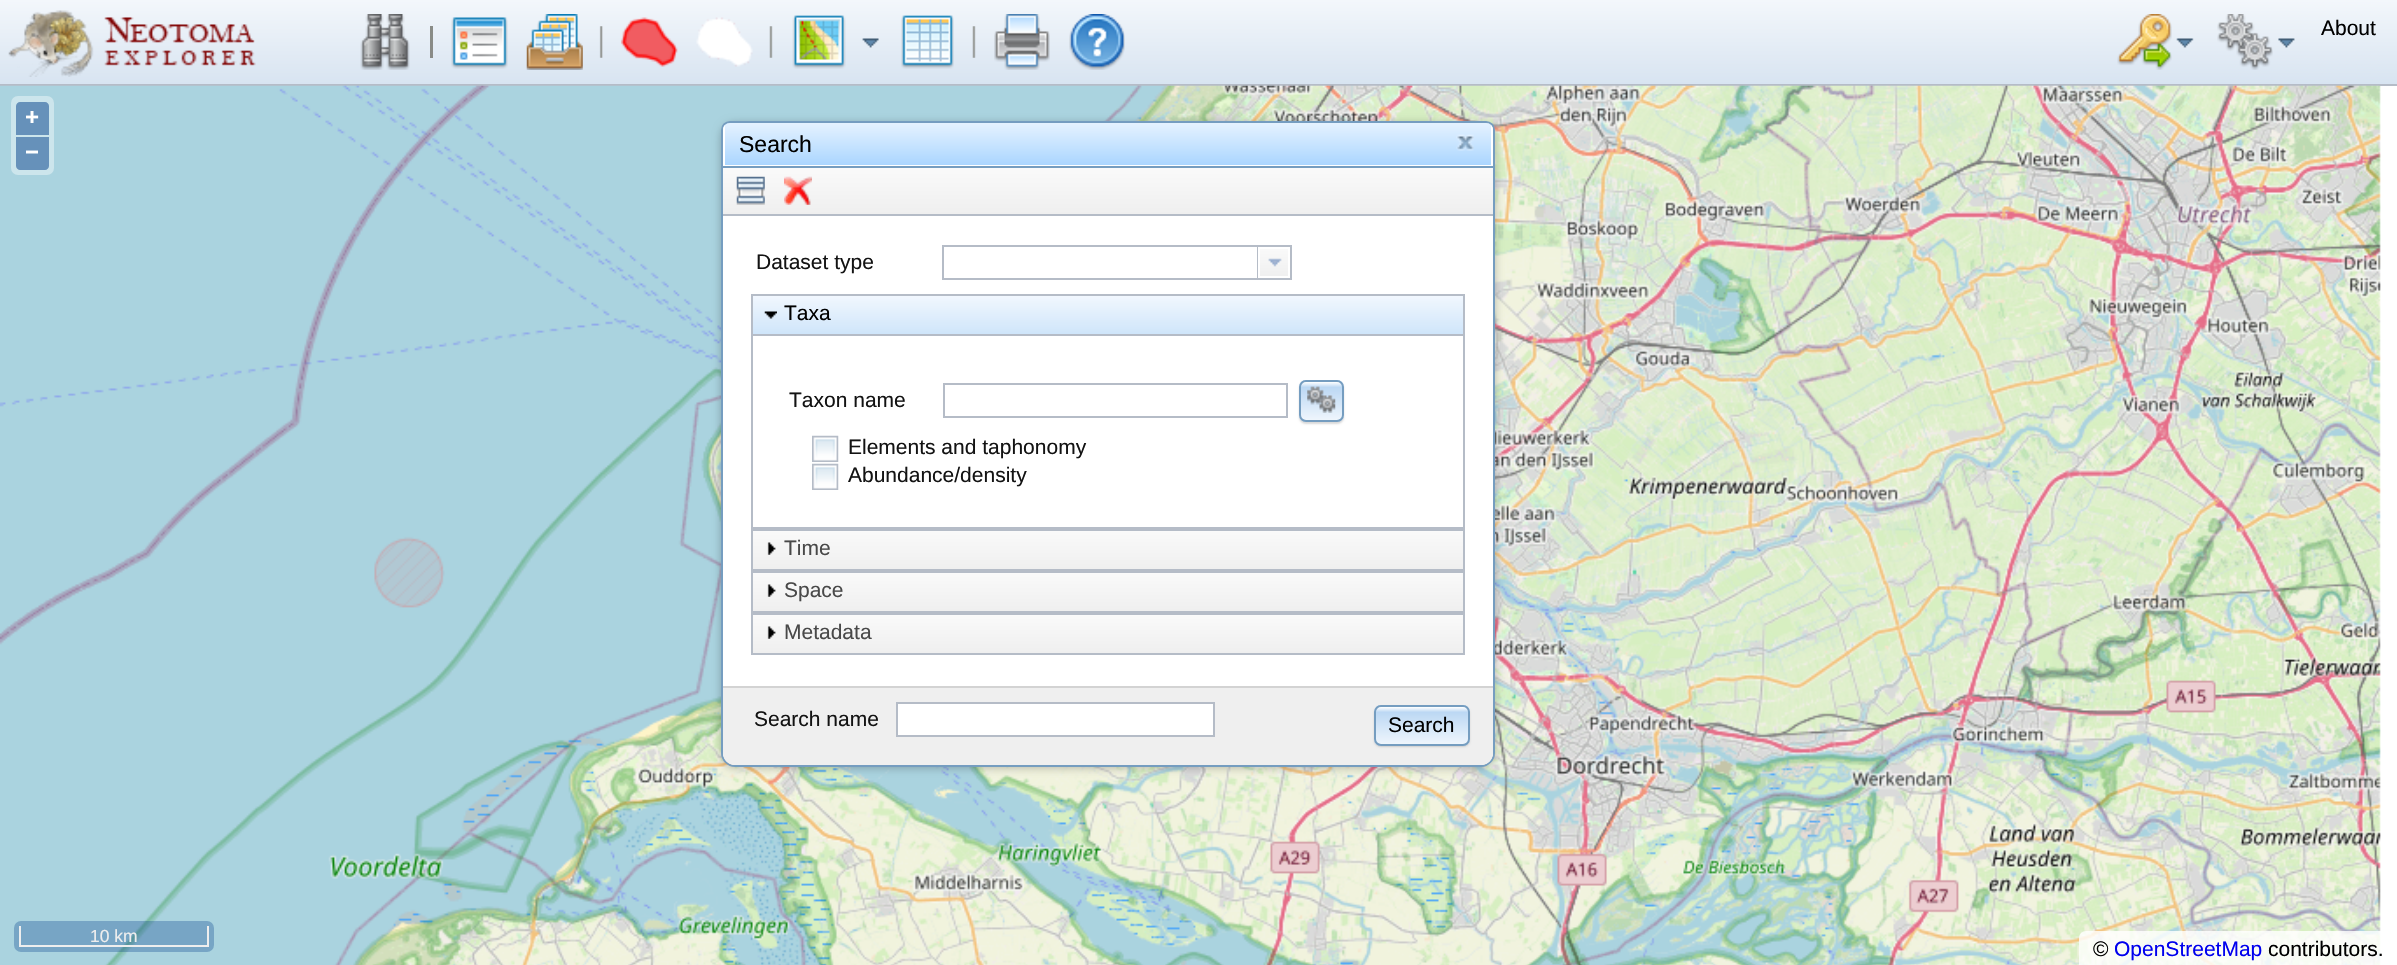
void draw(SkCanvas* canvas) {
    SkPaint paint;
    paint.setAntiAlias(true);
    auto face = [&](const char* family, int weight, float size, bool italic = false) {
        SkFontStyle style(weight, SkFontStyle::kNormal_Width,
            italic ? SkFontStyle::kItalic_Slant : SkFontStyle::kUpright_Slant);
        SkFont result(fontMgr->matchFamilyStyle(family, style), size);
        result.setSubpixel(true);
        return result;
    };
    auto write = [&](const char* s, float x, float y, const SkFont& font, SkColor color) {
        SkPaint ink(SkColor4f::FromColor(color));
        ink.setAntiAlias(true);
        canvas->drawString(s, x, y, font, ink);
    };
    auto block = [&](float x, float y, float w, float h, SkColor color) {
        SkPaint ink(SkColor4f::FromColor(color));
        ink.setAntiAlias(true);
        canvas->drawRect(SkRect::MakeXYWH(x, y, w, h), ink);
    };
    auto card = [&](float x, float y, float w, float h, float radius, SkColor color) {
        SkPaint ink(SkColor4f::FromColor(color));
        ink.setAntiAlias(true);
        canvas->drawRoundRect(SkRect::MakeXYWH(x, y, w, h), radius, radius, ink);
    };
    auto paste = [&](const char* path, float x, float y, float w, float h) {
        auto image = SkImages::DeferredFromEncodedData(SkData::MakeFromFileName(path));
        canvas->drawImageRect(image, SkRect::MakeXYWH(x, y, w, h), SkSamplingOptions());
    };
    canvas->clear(SK_ColorWHITE);
    {
        const SkColor colors[] = {SkColorSetRGB(243, 247, 251), SkColorSetRGB(216, 228, 241)};
        const float stops[] = {0, 1};
        const SkPoint ends[] = {{1199, 0}, {1199, 84}};
        paint.setShader(SkGradientShader::MakeLinear(ends, colors, stops, 2, SkTileMode::kClamp));
        paint.setAlpha(255);
    }
    canvas->drawRect(SkRect::MakeXYWH(0, 0, 2397, 84), paint);
    paste("pic1.png", 8, 10, 248, 67);
    {
        const SkColor colors[] = {SkColorSetRGB(138, 140, 135), SkColorSetRGB(136, 139, 135)};
        const float stops[] = {0, 1};
        const SkPoint ends[] = {{1199, 0}, {1199, 84}};
        paint.setShader(SkGradientShader::MakeLinear(ends, colors, stops, 2, SkTileMode::kClamp));
        paint.setAlpha(255);
    }
    canvas->drawRect(SkRect::MakeXYWH(430, 26, 3, 32), paint);
    block(0, 84, 2397, 2, SkColorSetRGB(181, 188, 199));
    paste("pic2.png", 360, 14, 50, 56);
    paste("pic3.png", 451, 17, 57, 52);
    paste("pic4.png", 526, 14, 57, 56);
    paste("pic5.png", 599, 26, 4, 32);
    paste("pic6.png", 621, 17, 57, 50);
    paste("pic7.png", 696, 17, 57, 50);
    paste("pic8.png", 769, 26, 4, 32);
    paste("pic9.png", 792, 15, 54, 54);
    paste("pic10.png", 862, 38, 17, 10);
    paste("pic11.png", 901, 15, 53, 54);
    paste("pic8.png", 972, 26, 4, 32);
    paste("pic12.png", 994, 14, 56, 56);
    paste("pic13.png", 1069, 14, 56, 56);
    paste("pic14.png", 2117, 14, 55, 56);
    paste("pic15.png", 2176, 38, 18, 10);
    paste("pic16.png", 2217, 14, 56, 56);
    paste("pic17.png", 2278, 38, 17, 10);
    auto kFont1 = face("Liberation Sans", 400, 21);
    write("About", 2321, 35, kFont1, SK_ColorBLACK);
    paste("pic18.png", 0, 85, 2381, 880);
    card(11, 96, 43, 79, 7, SkColorSetRGB(204, 229, 236));
    paint.setShader(nullptr);
    paint.setColor(SkColorSetRGB(102, 145, 186));
    canvas->drawPath(SkPathBuilder().moveTo(20, 102).lineTo(45, 102).cubicTo(47, 102, 49, 104, 49, 106).lineTo(49, 135).lineTo(16, 135).lineTo(16, 106).cubicTo(16, 104, 18, 102, 20, 102).close().detach(), paint);
    auto kFont2 = face("Liberation Sans", 700, 24);
    write("+", 25, 125, kFont2, SK_ColorWHITE);
    canvas->drawPath(SkPathBuilder().moveTo(16, 137).lineTo(49, 137).lineTo(49, 166).cubicTo(49, 168, 47, 170, 45, 170).lineTo(20, 170).cubicTo(18, 170, 16, 168, 16, 166).close().detach(), paint);
    write("−", 25, 160, kFont2, SK_ColorWHITE);
    card(14, 921, 200, 31, 7, SkColorSetARGB(77, 0, 60, 136));
    block(207, 926, 2, 21, SkColorSetRGB(238, 238, 238));
    block(19, 945, 189, 2, SkColorSetRGB(238, 238, 238));
    block(19, 926, 2, 21, SkColorSetRGB(238, 238, 238));
    auto kFont3 = face("Liberation Sans", 400, 17.5f);
    write("10 km", 90, 942, kFont3, SkColorSetRGB(238, 238, 238));
    paint.setColor(SkColorSetARGB(204, 255, 255, 255));
    canvas->drawPath(SkPathBuilder().moveTo(2086, 931).lineTo(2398, 931).lineTo(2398, 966).lineTo(2079, 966).lineTo(2079, 938).cubicTo(2079, 934, 2082, 931, 2086, 931).close().detach(), paint);
    write("©", 2093, 956, kFont1, SK_ColorBLACK);
    write("OpenStreetMap", 2114, 956, kFont1, SkColorSetRGB(0, 0, 238));
    write("contributors.", 2268, 956, kFont1, SK_ColorBLACK);
    paint.setColor(SkColorSetARGB(64, 0, 0, 0));
    paint.setMaskFilter(SkMaskFilter::MakeBlur(kNormal_SkBlurStyle, 4.5f));
    canvas->drawRoundRect(SkRect::MakeXYWH(721, 123, 774, 645), 14, 14, paint);
    paint.setMaskFilter(nullptr);
    paint.setStyle(SkPaint::kStroke_Style);
    paint.setStrokeWidth(2);
    paint.setColor(SkColorSetRGB(117, 157, 192));
    canvas->drawPath(SkPathBuilder().moveTo(730, 122).lineTo(1486, 122).cubicTo(1490.5f, 122, 1494, 125.5f, 1494, 130).lineTo(1494, 753).cubicTo(1494, 760, 1488, 766, 1481, 766).lineTo(735, 766).cubicTo(728, 766, 722, 760, 722, 753).lineTo(722, 130).cubicTo(722, 125.5f, 725.5f, 122, 730, 122).close().detach(), paint);
    paint.setStyle(SkPaint::kFill_Style);
    paint.setColor(SkColorSetRGB(171, 214, 255));
    canvas->drawPath(SkPathBuilder().moveTo(730, 123).lineTo(1486, 123).cubicTo(1490, 123, 1493, 126, 1493, 130).lineTo(1493, 166).lineTo(723, 166).lineTo(723, 130).cubicTo(723, 126, 726, 123, 730, 123).close().detach(), paint);
    {
        const SkColor colors[] = {SkColorSetARGB(179, 255, 255, 255), SkColorSetARGB(0, 255, 255, 255)};
        const float stops[] = {0, 1};
        const SkPoint ends[] = {{1108, 122}, {1108, 165}};
        paint.setShader(SkGradientShader::MakeLinear(ends, colors, stops, 2, SkTileMode::kClamp));
        paint.setAlpha(255);
    }
    canvas->drawPath(SkPathBuilder().moveTo(730, 123).lineTo(1486, 123).cubicTo(1490, 123, 1493, 126, 1493, 130).lineTo(1493, 165).lineTo(723, 165).lineTo(723, 130).cubicTo(723, 126, 726, 123, 730, 123).close().detach(), paint);
    canvas->save();
    canvas->clipPath(SkPathBuilder().moveTo(730, 123).lineTo(1486, 123).cubicTo(1490, 123, 1493, 126, 1493, 130).lineTo(1493, 753).cubicTo(1493, 759.5f, 1487.5f, 765, 1481, 765).lineTo(735, 765).cubicTo(728.5f, 765, 723, 759.5f, 723, 753).lineTo(723, 130).cubicTo(723, 126, 726, 123, 730, 123).close().detach(), true);
    block(1491, 123, 2, 43, SK_ColorWHITE);
    canvas->restore();
    block(723, 165, 770, 1, SK_ColorWHITE);
    canvas->save();
    canvas->clipPath(SkPathBuilder().moveTo(730, 123).lineTo(1486, 123).cubicTo(1490, 123, 1493, 126, 1493, 130).lineTo(1493, 753).cubicTo(1493, 759.5f, 1487.5f, 765, 1481, 765).lineTo(735, 765).cubicTo(728.5f, 765, 723, 759.5f, 723, 753).lineTo(723, 130).cubicTo(723, 126, 726, 123, 730, 123).close().detach(), true);
    block(723, 123, 2, 43, SK_ColorWHITE);
    canvas->restore();
    auto kFont4 = face("Liberation Sans", 400, 23);
    write("Search", 739, 152, kFont4, SK_ColorBLACK);
    paste("pic19.png", 1456, 134, 18, 17);
    paint.setShader(nullptr);
    paint.setColor(SK_ColorWHITE);
    canvas->drawPath(SkPathBuilder().moveTo(723, 166).lineTo(1493, 166).lineTo(1493, 753).cubicTo(1493, 759.5f, 1487.5f, 765, 1481, 765).lineTo(735, 765).cubicTo(728.5f, 765, 723, 759.5f, 723, 753).close().detach(), paint);
    block(723, 166, 770, 2, SkColorSetRGB(117, 157, 192));
    {
        const SkColor colors[] = {SkColorSetRGB(250, 250, 250), SkColorSetRGB(239, 239, 239)};
        const float stops[] = {0, 1};
        const SkPoint ends[] = {{1108, 168}, {1108, 214}};
        paint.setShader(SkGradientShader::MakeLinear(ends, colors, stops, 2, SkTileMode::kClamp));
        paint.setAlpha(255);
    }
    canvas->drawRect(SkRect::MakeXYWH(723, 168, 770, 46), paint);
    block(723, 214, 770, 2, SkColorSetRGB(181, 188, 199));
    paste("pic20.png", 736, 176, 29, 29);
    paste("pic21.png", 784, 176, 28, 29);
    write("Dataset type", 756, 269, kFont1, SkColorSetRGB(19, 19, 19));
    paint.setStyle(SkPaint::kStroke_Style);
    paint.setShader(nullptr);
    paint.setColor(SkColorSetRGB(181, 188, 199));
    canvas->drawRect(SkRect::MakeXYWH(943, 246, 348, 33), paint);
    paint.setStyle(SkPaint::kFill_Style);
    {
        const SkColor colors[] = {SkColorSetRGB(250, 250, 250), SkColorSetRGB(239, 239, 239)};
        const float stops[] = {0, 1};
        const SkPoint ends[] = {{1274, 247}, {1274, 278}};
        paint.setShader(SkGradientShader::MakeLinear(ends, colors, stops, 2, SkTileMode::kClamp));
        paint.setAlpha(255);
    }
    canvas->drawRect(SkRect::MakeXYWH(1260, 249, 28, 27), paint);
    block(1257, 247, 1, 31, SkColorSetRGB(181, 188, 199));
    paste("pic22.png", 1268, 258, 14, 9);
    {
        const SkColor colors[] = {SkColorSetRGB(241, 247, 254), SkColorSetRGB(207, 229, 250)};
        const float stops[] = {0, 1};
        const SkPoint ends[] = {{1108, 296}, {1108, 334}};
        paint.setShader(SkGradientShader::MakeLinear(ends, colors, stops, 2, SkTileMode::kClamp));
        paint.setAlpha(255);
    }
    canvas->drawRect(SkRect::MakeXYWH(753, 296, 710, 38), paint);
    paint.setStyle(SkPaint::kStroke_Style);
    paint.setShader(nullptr);
    paint.setColor(SkColorSetRGB(181, 188, 199));
    canvas->drawRect(SkRect::MakeXYWH(752, 295, 712, 40), paint);
    paste("pic23.png", 764, 311, 13, 8);
    write("Taxa", 784, 320, kFont1, SK_ColorBLACK);
    block(1463, 336, 2, 193, SkColorSetRGB(181, 188, 199));
    block(751, 527, 714, 2, SkColorSetRGB(181, 188, 199));
    block(751, 336, 2, 193, SkColorSetRGB(181, 188, 199));
    write("Taxon name", 789, 407, kFont1, SkColorSetRGB(19, 19, 19));
    canvas->drawRect(SkRect::MakeXYWH(944, 384, 343, 33), paint);
    paint.setStyle(SkPaint::kFill_Style);
    paint.setColor(SkColorSetARGB(38, 0, 0, 0));
    paint.setMaskFilter(SkMaskFilter::MakeBlur(kNormal_SkBlurStyle, 1));
    canvas->drawRoundRect(SkRect::MakeXYWH(1299, 382, 45, 42), 7, 7, paint);
    paint.setMaskFilter(nullptr);
    card(1299, 380, 45, 42, 7, SkColorSetRGB(188, 216, 244));
    canvas->save();
    canvas->clipPath(SkPathBuilder().moveTo(1306, 380).lineTo(1337, 380).cubicTo(1341, 380, 1344, 383, 1344, 387).lineTo(1344, 415).cubicTo(1344, 419, 1341, 422, 1337, 422).lineTo(1306, 422).cubicTo(1302, 422, 1299, 419, 1299, 415).lineTo(1299, 387).cubicTo(1299, 383, 1302, 380, 1306, 380).close().detach(), true);
    {
        const SkColor colors[] = {SK_ColorWHITE, SkColorSetARGB(0, 255, 255, 255), SkColorSetARGB(191, 255, 255, 255)};
        const float stops[] = {0, 0.14f, 1};
        const SkPoint ends[] = {{1321, 382}, {1321, 420}};
        paint.setShader(SkGradientShader::MakeLinear(ends, colors, stops, 3, SkTileMode::kClamp));
        paint.setAlpha(255);
    }
    canvas->drawRect(SkRect::MakeXYWH(1299, 382, 45, 38), paint);
    canvas->restore();
    paint.setStyle(SkPaint::kStroke_Style);
    paint.setShader(nullptr);
    paint.setColor(SkColorSetRGB(117, 157, 192));
    canvas->drawRoundRect(SkRect::MakeXYWH(1300, 381, 43, 40), 6, 6, paint);
    paste("pic24.png", 1307, 386, 29, 27);
    paste("pic25.png", 812, 435, 27, 27);
    write("Elements and taphonomy", 848, 454, kFont1, SkColorSetRGB(19, 19, 19));
    paste("pic25.png", 812, 463, 27, 27);
    write("Abundance/density", 848, 482, kFont1, SkColorSetRGB(19, 19, 19));
    paint.setStyle(SkPaint::kFill_Style);
    {
        const SkColor colors[] = {SkColorSetRGB(250, 250, 250), SkColorSetRGB(239, 239, 239)};
        const float stops[] = {0, 1};
        const SkPoint ends[] = {{1108, 530}, {1108, 569}};
        paint.setShader(SkGradientShader::MakeLinear(ends, colors, stops, 2, SkTileMode::kClamp));
        paint.setAlpha(255);
    }
    canvas->drawRect(SkRect::MakeXYWH(753, 531, 710, 38), paint);
    paint.setStyle(SkPaint::kStroke_Style);
    paint.setShader(nullptr);
    paint.setColor(SkColorSetRGB(181, 188, 199));
    canvas->drawRect(SkRect::MakeXYWH(752, 530, 712, 40), paint);
    paste("pic26.png", 767, 542, 9, 13);
    write("Time", 784, 555, kFont1, SkColorSetRGB(73, 73, 73));
    paint.setStyle(SkPaint::kFill_Style);
    {
        const SkColor colors[] = {SkColorSetRGB(250, 250, 250), SkColorSetRGB(239, 239, 239)};
        const float stops[] = {0, 1};
        const SkPoint ends[] = {{1108, 572}, {1108, 611}};
        paint.setShader(SkGradientShader::MakeLinear(ends, colors, stops, 2, SkTileMode::kClamp));
        paint.setAlpha(255);
    }
    canvas->drawRect(SkRect::MakeXYWH(753, 573, 710, 38), paint);
    paint.setStyle(SkPaint::kStroke_Style);
    paint.setShader(nullptr);
    paint.setColor(SkColorSetRGB(181, 188, 199));
    canvas->drawRect(SkRect::MakeXYWH(752, 572, 712, 40), paint);
    paste("pic26.png", 767, 584, 9, 13);
    write("Space", 784, 597, kFont1, SkColorSetRGB(73, 73, 73));
    paint.setStyle(SkPaint::kFill_Style);
    {
        const SkColor colors[] = {SkColorSetRGB(250, 250, 250), SkColorSetRGB(239, 239, 239)};
        const float stops[] = {0, 1};
        const SkPoint ends[] = {{1108, 614}, {1108, 653}};
        paint.setShader(SkGradientShader::MakeLinear(ends, colors, stops, 2, SkTileMode::kClamp));
        paint.setAlpha(255);
    }
    canvas->drawRect(SkRect::MakeXYWH(753, 615, 710, 38), paint);
    paint.setStyle(SkPaint::kStroke_Style);
    paint.setShader(nullptr);
    paint.setColor(SkColorSetRGB(181, 188, 199));
    canvas->drawRect(SkRect::MakeXYWH(752, 614, 712, 40), paint);
    paste("pic26.png", 767, 626, 9, 13);
    write("Metadata", 784, 639, kFont1, SkColorSetRGB(73, 73, 73));
    paint.setStyle(SkPaint::kFill_Style);
    paint.setColor(SkColorSetRGB(239, 239, 239));
    canvas->drawPath(SkPathBuilder().moveTo(723, 686).lineTo(1493, 686).lineTo(1493, 753).cubicTo(1493, 759.5f, 1487.5f, 765, 1481, 765).lineTo(735, 765).cubicTo(728.5f, 765, 723, 759.5f, 723, 753).close().detach(), paint);
    block(723, 686, 770, 2, SkColorSetRGB(211, 211, 211));
    write("Search name", 754, 726, kFont1, SkColorSetRGB(19, 19, 19));
    paint.setColor(SK_ColorWHITE);
    canvas->drawRect(SkRect::MakeXYWH(897, 703, 317, 33), paint);
    paint.setStyle(SkPaint::kStroke_Style);
    paint.setColor(SkColorSetRGB(181, 188, 199));
    canvas->drawRect(SkRect::MakeXYWH(897, 703, 317, 33), paint);
    paint.setStyle(SkPaint::kFill_Style);
    paint.setColor(SkColorSetARGB(38, 0, 0, 0));
    paint.setMaskFilter(SkMaskFilter::MakeBlur(kNormal_SkBlurStyle, 1));
    canvas->drawRoundRect(SkRect::MakeXYWH(1374, 707, 96, 40), 7, 7, paint);
    paint.setMaskFilter(nullptr);
    card(1374, 705, 96, 41, 7, SkColorSetRGB(188, 216, 244));
    canvas->save();
    canvas->clipPath(SkPathBuilder().moveTo(1381, 705).lineTo(1463, 705).cubicTo(1467, 705, 1470, 708, 1470, 712).lineTo(1470, 739).cubicTo(1470, 743, 1467, 746, 1463, 746).lineTo(1381, 746).cubicTo(1377, 746, 1374, 743, 1374, 739).lineTo(1374, 712).cubicTo(1374, 708, 1377, 705, 1381, 705).close().detach(), true);
    {
        const SkColor colors[] = {SK_ColorWHITE, SkColorSetARGB(0, 255, 255, 255), SkColorSetARGB(191, 255, 255, 255)};
        const float stops[] = {0, 0.14f, 1};
        const SkPoint ends[] = {{1422, 707}, {1422, 744}};
        paint.setShader(SkGradientShader::MakeLinear(ends, colors, stops, 3, SkTileMode::kClamp));
        paint.setAlpha(255);
    }
    canvas->drawRect(SkRect::MakeXYWH(1374, 707, 96, 37), paint);
    canvas->restore();
    paint.setStyle(SkPaint::kStroke_Style);
    paint.setShader(nullptr);
    paint.setColor(SkColorSetRGB(117, 157, 192));
    canvas->drawRoundRect(SkRect::MakeXYWH(1375, 706, 94, 39), 6, 6, paint);
    write("Search", 1388, 732, kFont1, SK_ColorBLACK);
}
